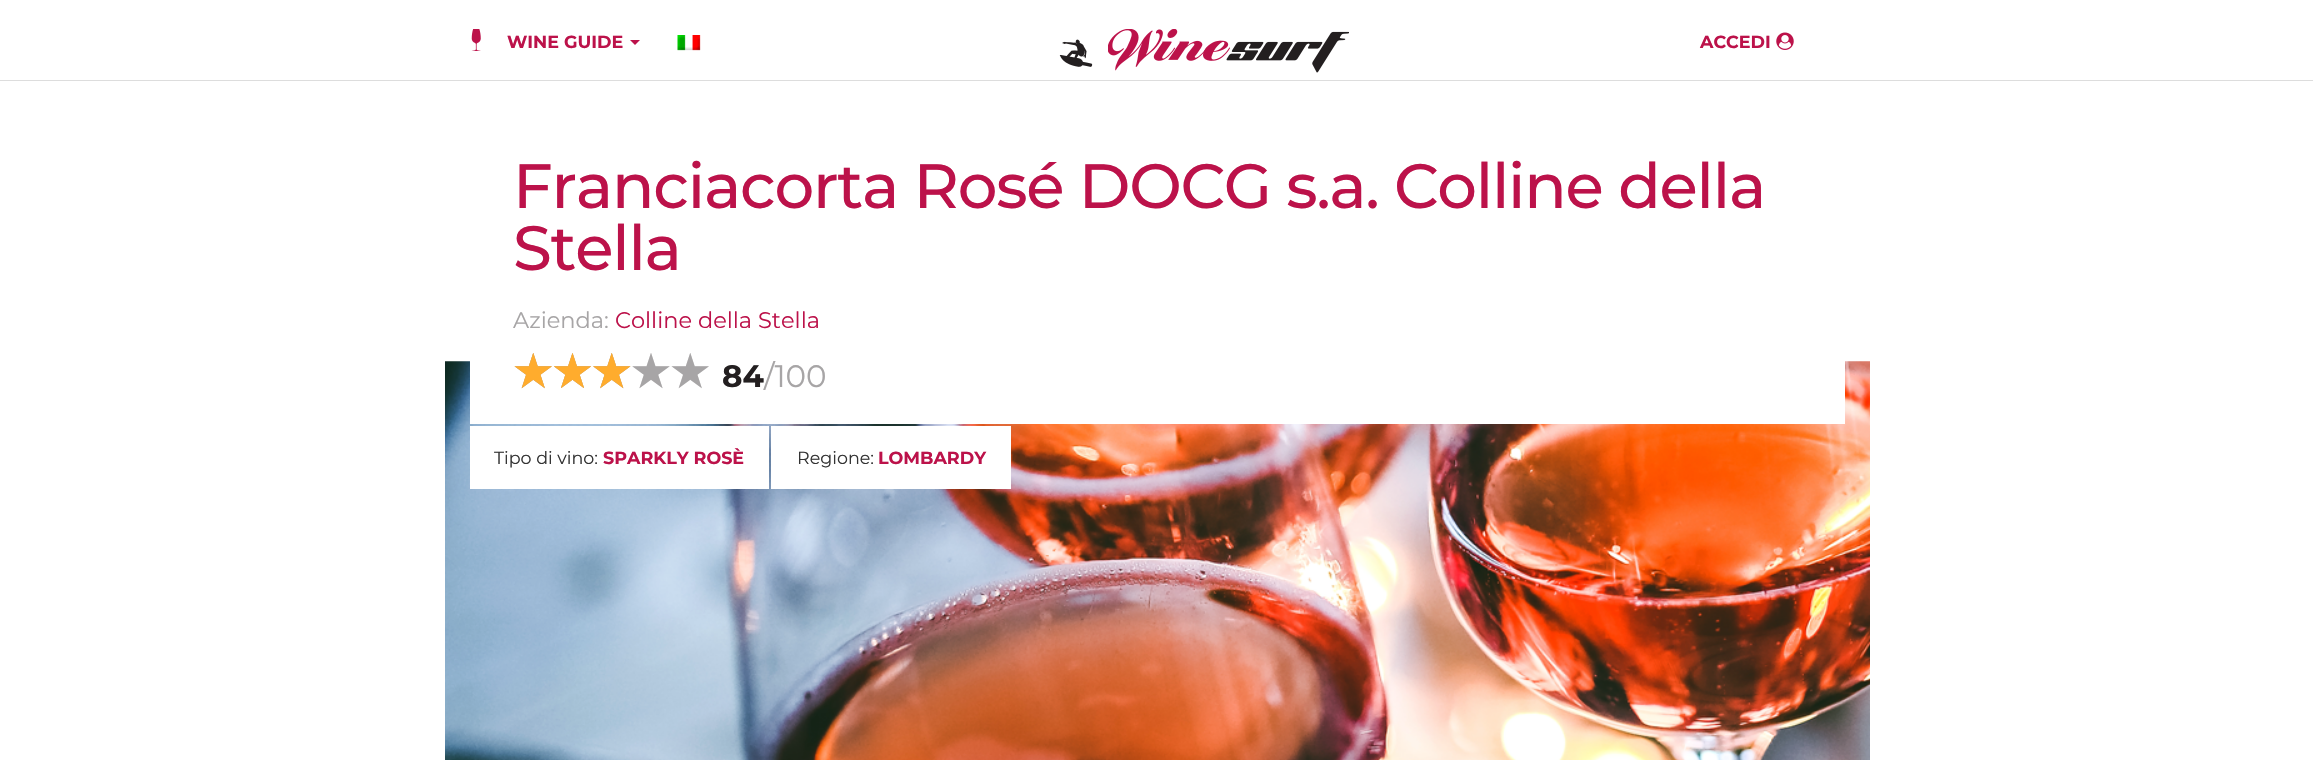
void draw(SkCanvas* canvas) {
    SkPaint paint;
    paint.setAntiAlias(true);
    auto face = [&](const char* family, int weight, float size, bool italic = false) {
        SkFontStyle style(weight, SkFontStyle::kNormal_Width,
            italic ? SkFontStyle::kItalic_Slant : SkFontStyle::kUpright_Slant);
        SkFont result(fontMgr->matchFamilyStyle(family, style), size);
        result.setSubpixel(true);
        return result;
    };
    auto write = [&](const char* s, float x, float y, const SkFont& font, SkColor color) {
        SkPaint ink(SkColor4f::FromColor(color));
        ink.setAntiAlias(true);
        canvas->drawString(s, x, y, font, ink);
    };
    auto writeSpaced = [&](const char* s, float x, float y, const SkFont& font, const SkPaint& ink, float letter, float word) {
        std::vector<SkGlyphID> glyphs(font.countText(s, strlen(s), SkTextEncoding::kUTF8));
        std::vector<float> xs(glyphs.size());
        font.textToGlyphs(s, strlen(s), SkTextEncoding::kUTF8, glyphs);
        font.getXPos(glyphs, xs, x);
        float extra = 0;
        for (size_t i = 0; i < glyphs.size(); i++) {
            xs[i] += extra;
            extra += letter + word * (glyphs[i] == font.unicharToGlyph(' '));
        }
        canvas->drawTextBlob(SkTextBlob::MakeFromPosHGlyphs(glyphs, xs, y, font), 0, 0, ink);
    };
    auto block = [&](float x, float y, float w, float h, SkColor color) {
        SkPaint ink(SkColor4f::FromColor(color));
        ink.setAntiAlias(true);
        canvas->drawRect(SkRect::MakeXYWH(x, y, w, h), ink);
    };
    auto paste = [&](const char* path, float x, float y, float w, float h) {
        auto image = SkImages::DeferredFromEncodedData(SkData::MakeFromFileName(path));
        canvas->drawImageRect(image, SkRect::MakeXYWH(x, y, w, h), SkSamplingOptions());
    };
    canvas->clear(SK_ColorWHITE);
    block(0, 80, 2313, 1, SkColorSetRGB(221, 221, 221));
    paste("pic1.png", 471, 29, 10, 22);
    auto kFont1 = face("Montserrat", 700, 17.5f);
    write("WINE GUIDE", 507, 48, kFont1, SkColorSetRGB(188, 18, 74));
    paint.setColor(SkColorSetRGB(188, 18, 74));
    canvas->drawPath(SkPathBuilder().moveTo(630, 40).lineTo(640, 40).lineTo(635, 45).close().detach(), paint);
    paste("pic2.png", 677, 35, 24, 16);
    paste("pic3.png", 1059, 39, 34, 28);
    paste("pic4.png", 1108, 29, 241, 44);
    write("ACCEDI", 1700, 48, kFont1, SkColorSetRGB(188, 18, 74));
    paste("pic5.png", 1776, 32, 18, 18);
    paste("pic6.png", 445, 361, 1425, 399);
    block(470, 361, 1375, 63, SK_ColorWHITE);
    auto kFont2 = face("Montserrat", 500, 62.5f);
    writeSpaced("Franciacorta Rosé DOCG s.a. Colline della", 513, 208, kFont2, paint, -1.25f, 0);
    writeSpaced("Stella", 513, 270, kFont2, paint, -1.25f, 0);
    auto kFont3 = face("Montserrat", 400, 22.5f);
    write("Azienda:", 513, 328, kFont3, SkColorSetRGB(167, 165, 166));
    write("Colline della Stella", 615, 328, kFont3, SkColorSetRGB(188, 18, 74));
    auto kFont4 = face("DejaVu Sans", 700, 43.75f);
    write("★★★★★", 513, 387, kFont4, SkColorSetRGB(167, 165, 166));
    write("★★★", 513, 387, kFont4, SkColorSetRGB(255, 172, 45));
    auto kFont5 = face("Montserrat", 700, 31);
    write("84", 722, 387, kFont5, SkColorSetRGB(35, 31, 32));
    auto kFont6 = face("Montserrat", 400, 31);
    write("/100", 764, 387, kFont6, SkColorSetRGB(167, 165, 166));
    block(470, 426, 299, 63, SK_ColorWHITE);
    auto kFont7 = face("Montserrat", 400, 17.5f);
    write("Tipo di vino:", 494, 464, kFont7, SkColorSetRGB(51, 51, 51));
    write("SPARKLY ROSÈ", 603, 464, kFont1, SkColorSetRGB(188, 18, 74));
    block(771, 426, 240, 63, SK_ColorWHITE);
    write("Regione:", 797, 464, kFont7, SkColorSetRGB(51, 51, 51));
    write("LOMBARDY", 878, 464, kFont1, SkColorSetRGB(188, 18, 74));
}
